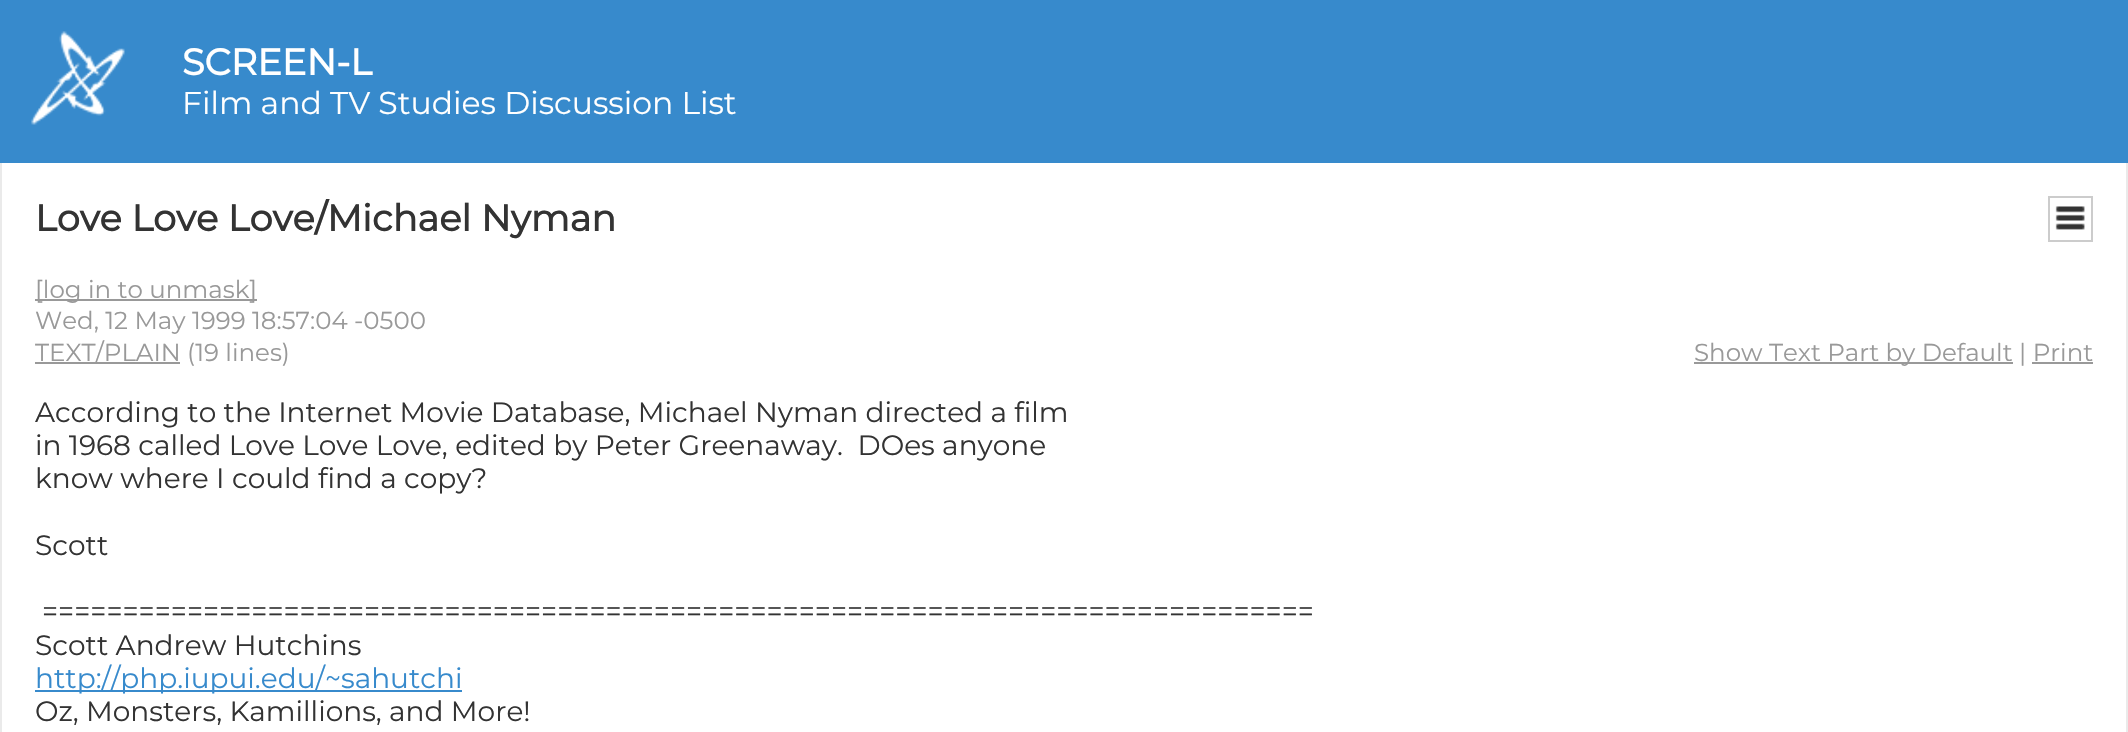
void draw(SkCanvas* canvas) {
    SkPaint paint;
    paint.setAntiAlias(true);
    auto face = [&](const char* family, int weight, float size, bool italic = false) {
        SkFontStyle style(weight, SkFontStyle::kNormal_Width,
            italic ? SkFontStyle::kItalic_Slant : SkFontStyle::kUpright_Slant);
        SkFont result(fontMgr->matchFamilyStyle(family, style), size);
        result.setSubpixel(true);
        return result;
    };
    auto write = [&](const char* s, float x, float y, const SkFont& font, SkColor color) {
        SkPaint ink(SkColor4f::FromColor(color));
        ink.setAntiAlias(true);
        canvas->drawString(s, x, y, font, ink);
    };
    auto block = [&](float x, float y, float w, float h, SkColor color) {
        SkPaint ink(SkColor4f::FromColor(color));
        ink.setAntiAlias(true);
        canvas->drawRect(SkRect::MakeXYWH(x, y, w, h), ink);
    };
    auto paste = [&](const char* path, float x, float y, float w, float h) {
        auto image = SkImages::DeferredFromEncodedData(SkData::MakeFromFileName(path));
        canvas->drawImageRect(image, SkRect::MakeXYWH(x, y, w, h), SkSamplingOptions());
    };
    canvas->clear(SkColorSetRGB(55, 138, 204));
    paste("pic1.png", 31, 31, 94, 94);
    auto kFont1 = face("Montserrat", 700, 36.75f);
    write("SCREEN-L", 182, 75, kFont1, SK_ColorWHITE);
    auto kFont2 = face("Montserrat", 100, 31.5f);
    write("Film and TV Studies Discussion List", 182, 114, kFont2, SK_ColorWHITE);
    block(2, 163, 2124, 569, SK_ColorWHITE);
    block(2126, 163, 2, 569, SkColorSetRGB(234, 234, 234));
    block(0, 163, 2, 569, SkColorSetRGB(234, 234, 234));
    paint.setStyle(SkPaint::kStroke_Style);
    paint.setStrokeWidth(2);
    paint.setColor(SkColorSetRGB(204, 204, 204));
    canvas->drawRect(SkRect::MakeXYWH(2049, 197, 43, 44), paint);
    paste("pic2.png", 2055, 206, 30, 24);
    write("Love Love Love/Michael Nyman", 35, 231, kFont1, SkColorSetRGB(51, 51, 51));
    block(35, 299, 222, 2, SkColorSetRGB(153, 153, 153));
    auto kFont3 = face("Montserrat", 100, 24.5f);
    write("[log in to unmask]", 35, 298, kFont3, SkColorSetRGB(153, 153, 153));
    write("Wed, 12 May 1999 18:57:04 -0500", 35, 329, kFont3, SkColorSetRGB(153, 153, 153));
    block(35, 362, 145, 2, SkColorSetRGB(153, 153, 153));
    write("TEXT/PLAIN (19 lines)", 35, 361, kFont3, SkColorSetRGB(153, 153, 153));
    block(1694, 362, 319, 2, SkColorSetRGB(153, 153, 153));
    write("Show Text Part by Default | Print", 1694, 361, kFont3, SkColorSetRGB(153, 153, 153));
    block(2032, 362, 61, 2, SkColorSetRGB(153, 153, 153));
    auto kFont4 = face("Montserrat", 100, 28);
    write("According to the Internet Movie Database, Michael Nyman directed a film", 35, 422, kFont4, SkColorSetRGB(51, 51, 51));
    write("in 1968 called Love Love Love, edited by Peter Greenaway.  DOes anyone", 35, 455, kFont4, SkColorSetRGB(51, 51, 51));
    write("know where I could find a copy?", 35, 488, kFont4, SkColorSetRGB(51, 51, 51));
    write("Scott", 35, 555, kFont4, SkColorSetRGB(51, 51, 51));
    write("===============================================================================", 42, 621, kFont4, SkColorSetRGB(51, 51, 51));
    write("Scott Andrew Hutchins", 35, 655, kFont4, SkColorSetRGB(51, 51, 51));
    block(35, 690, 427, 2, SkColorSetRGB(55, 138, 204));
    write("http://php.iupui.edu/~sahutchi", 35, 688, kFont4, SkColorSetRGB(55, 138, 204));
    write("Oz, Monsters, Kamillions, and More!", 35, 721, kFont4, SkColorSetRGB(51, 51, 51));
}
